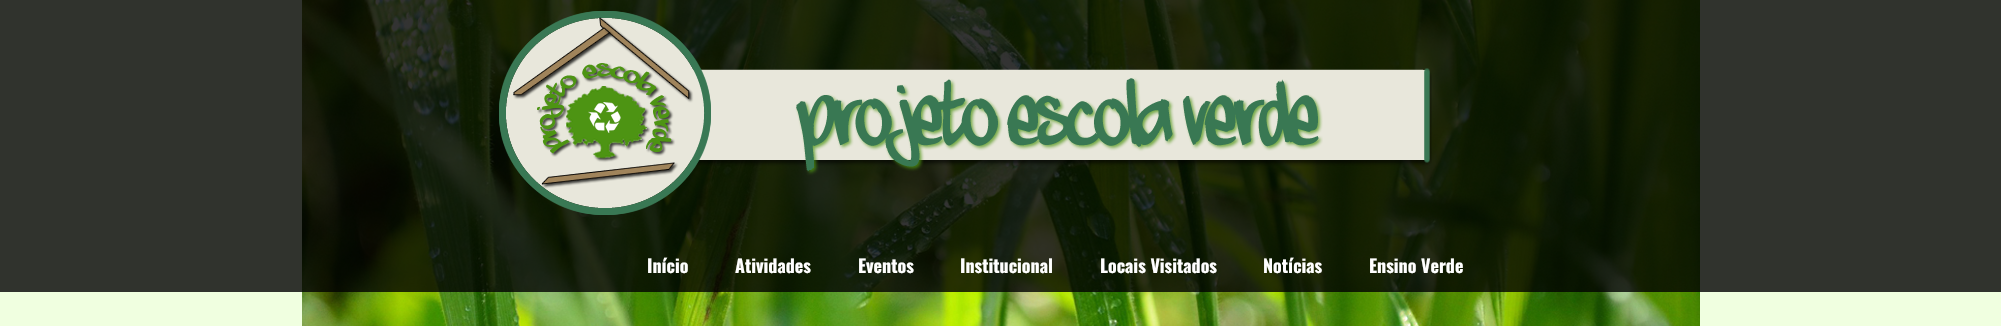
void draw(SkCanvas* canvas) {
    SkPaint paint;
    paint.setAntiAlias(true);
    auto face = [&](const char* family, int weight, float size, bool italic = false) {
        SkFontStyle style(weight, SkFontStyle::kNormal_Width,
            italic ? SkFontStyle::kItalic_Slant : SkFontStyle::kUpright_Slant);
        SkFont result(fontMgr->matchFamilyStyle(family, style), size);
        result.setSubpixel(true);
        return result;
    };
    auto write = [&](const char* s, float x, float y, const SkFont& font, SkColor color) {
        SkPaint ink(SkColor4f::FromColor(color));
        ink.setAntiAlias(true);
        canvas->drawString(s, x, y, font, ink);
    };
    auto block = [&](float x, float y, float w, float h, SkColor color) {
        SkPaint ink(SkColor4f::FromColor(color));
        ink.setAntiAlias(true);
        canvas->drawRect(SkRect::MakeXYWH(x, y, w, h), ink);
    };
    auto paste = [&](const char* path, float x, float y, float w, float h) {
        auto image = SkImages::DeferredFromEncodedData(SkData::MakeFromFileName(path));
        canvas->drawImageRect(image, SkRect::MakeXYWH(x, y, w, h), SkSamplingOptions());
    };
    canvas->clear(SkColorSetRGB(240, 255, 224));
    paste("pic1.png", 302, 0, 1398, 326);
    block(0, 0, 2001, 292, SkColorSetARGB(204, 0, 0, 0));
    paste("pic2.png", 499, 11, 933, 204);
    auto kFont1 = face("Oswald", 700, 18);
    write("Início", 647, 273, kFont1, SK_ColorWHITE);
    write("Atividades", 735, 273, kFont1, SK_ColorWHITE);
    write("Eventos", 858, 273, kFont1, SK_ColorWHITE);
    write("Institucional", 960, 273, kFont1, SK_ColorWHITE);
    write("Locais Visitados", 1100, 273, kFont1, SK_ColorWHITE);
    write("Notícias", 1263, 273, kFont1, SK_ColorWHITE);
    write("Ensino Verde", 1369, 273, kFont1, SK_ColorWHITE);
}
